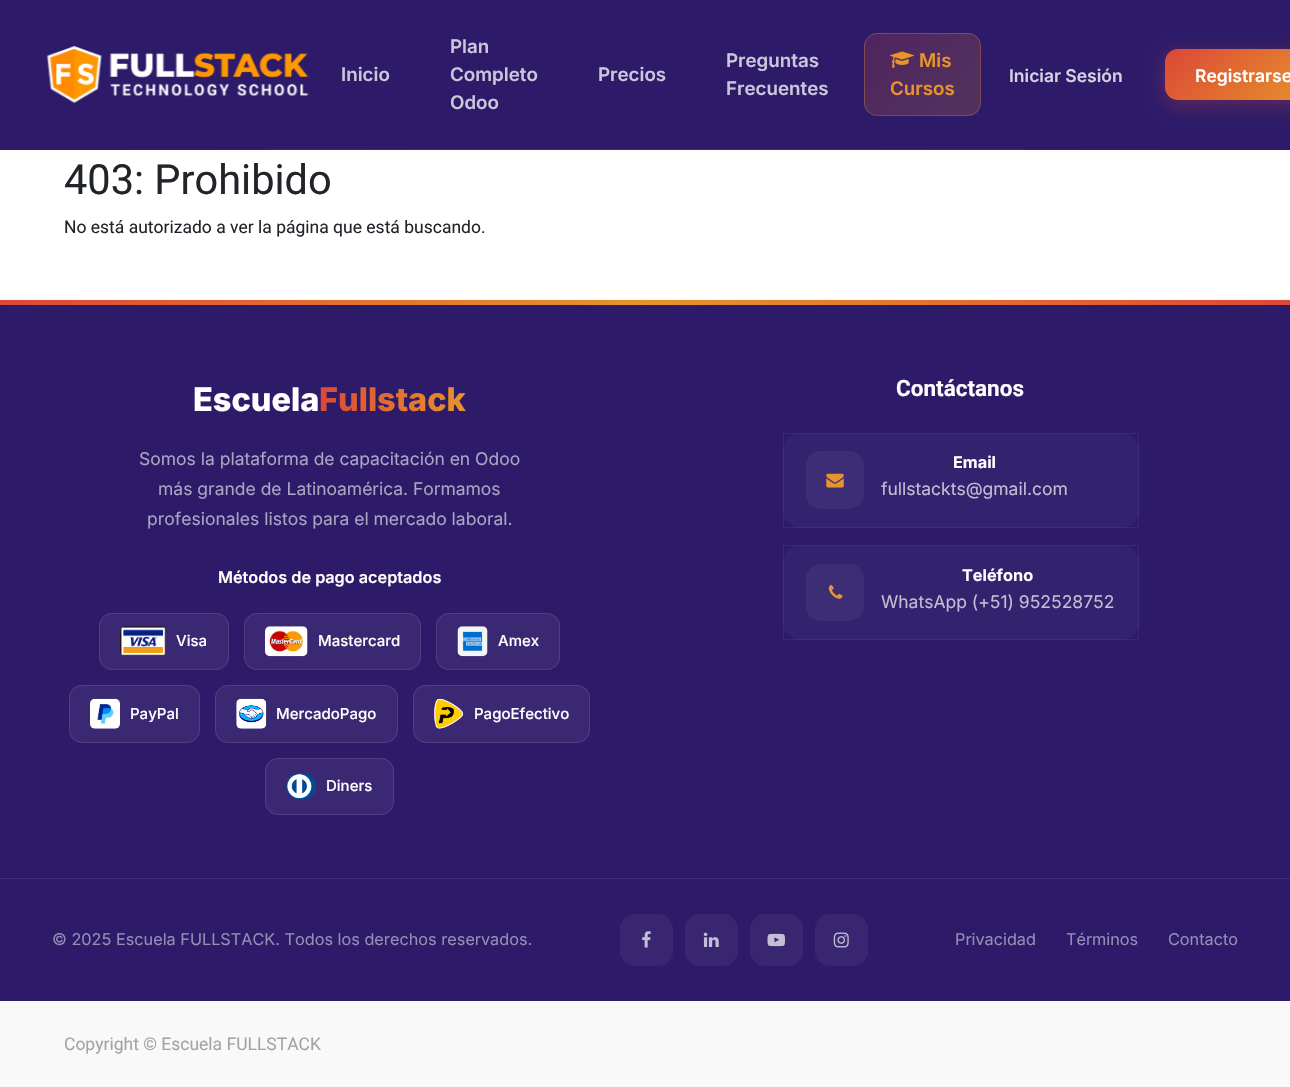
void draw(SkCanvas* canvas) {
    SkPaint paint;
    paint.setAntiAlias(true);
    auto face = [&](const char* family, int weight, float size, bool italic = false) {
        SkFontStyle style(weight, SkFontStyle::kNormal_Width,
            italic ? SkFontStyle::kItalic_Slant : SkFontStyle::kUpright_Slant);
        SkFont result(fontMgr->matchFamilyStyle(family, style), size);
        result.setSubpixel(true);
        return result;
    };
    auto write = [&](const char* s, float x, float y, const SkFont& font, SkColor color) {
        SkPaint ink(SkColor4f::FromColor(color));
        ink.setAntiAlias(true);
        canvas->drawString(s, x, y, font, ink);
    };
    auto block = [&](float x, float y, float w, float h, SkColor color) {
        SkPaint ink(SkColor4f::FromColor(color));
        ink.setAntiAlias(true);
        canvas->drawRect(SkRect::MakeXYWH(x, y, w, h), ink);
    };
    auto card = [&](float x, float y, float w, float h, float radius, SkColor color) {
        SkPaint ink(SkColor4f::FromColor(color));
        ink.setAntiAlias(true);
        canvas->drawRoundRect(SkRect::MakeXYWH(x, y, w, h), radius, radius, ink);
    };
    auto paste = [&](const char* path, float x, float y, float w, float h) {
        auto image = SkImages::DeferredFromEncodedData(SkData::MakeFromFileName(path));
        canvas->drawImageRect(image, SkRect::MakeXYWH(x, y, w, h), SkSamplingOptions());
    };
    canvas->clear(SK_ColorWHITE);
    block(0, 0, 1290, 149, SkColorSetRGB(45, 27, 105));
    paste("pic1.png", 46, 46, 263, 57);
    auto kFont1 = face("Inter", 600, 18.75f);
    write("Inicio", 341, 81, kFont1, SkColorSetRGB(203, 198, 218));
    write("Plan", 450, 53, kFont1, SkColorSetRGB(203, 198, 218));
    write("Completo", 450, 81, kFont1, SkColorSetRGB(203, 198, 218));
    write("Odoo", 450, 109, kFont1, SkColorSetRGB(203, 198, 218));
    write("Precios", 598, 81, kFont1, SkColorSetRGB(203, 198, 218));
    write("Preguntas", 726, 67, kFont1, SkColorSetRGB(203, 198, 218));
    write("Frecuentes", 726, 95, kFont1, SkColorSetRGB(203, 198, 218));
    canvas->save();
    canvas->clipPath(SkPathBuilder().moveTo(877, 33).lineTo(968, 33).cubicTo(975, 33, 981, 39, 981, 46).lineTo(981, 103).cubicTo(981, 110, 975, 116, 968, 116).lineTo(877, 116).cubicTo(870, 116, 864, 110, 864, 103).lineTo(864, 46).cubicTo(864, 39, 870, 33, 877, 33).close().detach(), true);
    {
        const SkColor colors[] = {SkColorSetRGB(80, 36, 95), SkColorSetRGB(82, 51, 93)};
        const float stops[] = {0, 1};
        const SkPoint ends[] = {{873, -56}, {972, 42}};
        paint.setShader(SkGradientShader::MakeLinear(ends, colors, stops, 2, SkTileMode::kClamp));
        paint.setAlpha(255);
    }
    canvas->drawRect(SkRect::MakeXYWH(865, 33, 115, 1), paint);
    {
        const SkColor colors[] = {SkColorSetRGB(80, 36, 95), SkColorSetRGB(82, 51, 93)};
        const float stops[] = {0, 1};
        const SkPoint ends[] = {{758, 25}, {857, 123}};
        paint.setShader(SkGradientShader::MakeLinear(ends, colors, stops, 2, SkTileMode::kClamp));
        paint.setAlpha(255);
    }
    canvas->drawRect(SkRect::MakeXYWH(864, 34, 1, 81), paint);
    {
        const SkColor colors[] = {SkColorSetRGB(80, 36, 95), SkColorSetRGB(82, 51, 93)};
        const float stops[] = {0, 1};
        const SkPoint ends[] = {{873, 25}, {972, 123}};
        paint.setShader(SkGradientShader::MakeLinear(ends, colors, stops, 2, SkTileMode::kClamp));
        paint.setAlpha(255);
    }
    canvas->drawRect(SkRect::MakeXYWH(865, 34, 115, 81), paint);
    {
        const SkColor colors[] = {SkColorSetRGB(80, 36, 95), SkColorSetRGB(82, 51, 93)};
        const float stops[] = {0, 1};
        const SkPoint ends[] = {{988, 25}, {1087, 123}};
        paint.setShader(SkGradientShader::MakeLinear(ends, colors, stops, 2, SkTileMode::kClamp));
        paint.setAlpha(255);
    }
    canvas->drawRect(SkRect::MakeXYWH(980, 34, 1, 81), paint);
    {
        const SkColor colors[] = {SkColorSetRGB(80, 36, 95), SkColorSetRGB(82, 51, 93)};
        const float stops[] = {0, 1};
        const SkPoint ends[] = {{873, 107}, {972, 205}};
        paint.setShader(SkGradientShader::MakeLinear(ends, colors, stops, 2, SkTileMode::kClamp));
        paint.setAlpha(255);
    }
    canvas->drawRect(SkRect::MakeXYWH(865, 115, 115, 1), paint);
    canvas->restore();
    paint.setStyle(SkPaint::kStroke_Style);
    paint.setStrokeWidth(1);
    paint.setShader(nullptr);
    paint.setColor(SkColorSetARGB(77, 230, 148, 43));
    canvas->drawRoundRect(SkRect::MakeXYWH(864.5f, 33.5f, 116, 82), 12.5f, 12.5f, paint);
    paste("pic2.png", 890, 51, 24, 17);
    write("Mis", 919, 67, kFont1, SkColorSetRGB(230, 148, 43));
    write("Cursos", 890, 95, kFont1, SkColorSetRGB(230, 148, 43));
    auto kFont2 = face("Inter", 600, 17.5f);
    write("Iniciar Sesión", 1009, 82, kFont2, SkColorSetRGB(213, 209, 225));
    paint.setStyle(SkPaint::kFill_Style);
    paint.setColor(SkColorSetARGB(77, 220, 72, 55));
    paint.setMaskFilter(SkMaskFilter::MakeBlur(kNormal_SkBlurStyle, 9.5f));
    canvas->drawRoundRect(SkRect::MakeXYWH(1165, 54, 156, 51), 13, 13, paint);
    paint.setMaskFilter(nullptr);
    {
        const SkColor colors[] = {SkColorSetRGB(220, 72, 55), SkColorSetRGB(230, 148, 43)};
        const float stops[] = {0, 1};
        const SkPoint ends[] = {{1191, 23}, {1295, 126}};
        paint.setShader(SkGradientShader::MakeLinear(ends, colors, stops, 2, SkTileMode::kClamp));
        paint.setAlpha(255);
    }
    canvas->drawRoundRect(SkRect::MakeXYWH(1165, 49, 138, 51), 13, 13, paint);
    write("Registrarse", 1195, 82, kFont2, SK_ColorWHITE);
    {
        const SkColor colors[] = {SkColorSetRGB(45, 27, 105), SkColorSetRGB(66, 50, 120), SkColorSetRGB(45, 27, 105)};
        const float stops[] = {0, 0.5f, 1};
        const SkPoint ends[] = {{0, 149}, {1290, 149}};
        paint.setShader(SkGradientShader::MakeLinear(ends, colors, stops, 3, SkTileMode::kClamp));
        paint.setAlpha(255);
    }
    canvas->drawRect(SkRect::MakeXYWH(0, 149, 1290, 1), paint);
    auto kFont3 = face("Roboto", 400, 41.5f);
    write("403: Prohibido", 64, 194, kFont3, SkColorSetRGB(33, 37, 41));
    auto kFont4 = face("Roboto", 400, 17.5f);
    write("No está autorizado a ver la página que está buscando.", 64, 233, kFont4, SkColorSetRGB(33, 37, 41));
    block(0, 299, 1290, 788, SkColorSetRGB(249, 249, 249));
    block(0, 305, 1290, 696, SkColorSetRGB(45, 27, 105));
    {
        const SkColor colors[] = {SkColorSetRGB(220, 72, 55), SkColorSetRGB(230, 148, 43), SkColorSetRGB(220, 72, 55)};
        const float stops[] = {0, 0.5f, 1};
        const SkPoint ends[] = {{0, 303}, {1290, 302}};
        paint.setShader(SkGradientShader::MakeLinear(ends, colors, stops, 3, SkTileMode::kClamp));
        paint.setAlpha(255);
    }
    canvas->drawRect(SkRect::MakeXYWH(0, 300, 1290, 5), paint);
    auto kFont5 = face("Inter", 800, 32.5f);
    write("Escuela", 193, 411, kFont5, SK_ColorWHITE);
    {
        const SkColor colors[] = {SkColorSetRGB(220, 72, 55), SkColorSetRGB(230, 148, 43)};
        const float stops[] = {0, 1};
        const SkPoint ends[] = {{319, 400}, {466, 400}};
        paint.setShader(SkGradientShader::MakeLinear(ends, colors, stops, 2, SkTileMode::kClamp));
        paint.setAlpha(255);
    }
    canvas->drawString("Fullstack", 319, 411, kFont5, paint);
    auto kFont6 = face("Inter", 400, 17.5f);
    write("Somos la plataforma de capacitación en Odoo", 139, 465, kFont6, SkColorSetRGB(171, 164, 195));
    write("más grande de Latinoamérica. Formamos", 158, 495, kFont6, SkColorSetRGB(171, 164, 195));
    write("profesionales listos para el mercado laboral.", 147, 525, kFont6, SkColorSetRGB(171, 164, 195));
    auto kFont7 = face("Inter", 600, 16.25f);
    write("Métodos de pago aceptados", 218, 583, kFont7, SK_ColorWHITE);
    card(99, 613, 130, 57, 13, SkColorSetRGB(58, 41, 114));
    paint.setStyle(SkPaint::kStroke_Style);
    paint.setShader(nullptr);
    paint.setColor(SkColorSetARGB(26, 255, 255, 255));
    canvas->drawRoundRect(SkRect::MakeXYWH(99.5f, 613.5f, 129, 56), 12.5f, 12.5f, paint);
    paste("pic3.png", 120, 626, 47, 31);
    auto kFont8 = face("Inter", 500, 15);
    write("Visa", 176, 646, kFont8, SK_ColorWHITE);
    card(244, 613, 177, 57, 13, SkColorSetRGB(58, 41, 114));
    canvas->drawRoundRect(SkRect::MakeXYWH(244.5f, 613.5f, 176, 56), 12.5f, 12.5f, paint);
    paste("pic4.png", 265, 626, 43, 31);
    write("Mastercard", 318, 646, kFont8, SK_ColorWHITE);
    card(436, 613, 124, 57, 13, SkColorSetRGB(58, 41, 114));
    canvas->drawRoundRect(SkRect::MakeXYWH(436.5f, 613.5f, 123, 56), 12.5f, 12.5f, paint);
    paste("pic5.png", 457, 626, 31, 31);
    write("Amex", 498, 646, kFont8, SK_ColorWHITE);
    card(69, 685, 131, 58, 13, SkColorSetRGB(58, 41, 114));
    canvas->drawRoundRect(SkRect::MakeXYWH(69.5f, 685.5f, 130, 57), 12.5f, 12.5f, paint);
    paste("pic6.png", 90, 698, 30, 31);
    write("PayPal", 130, 719, kFont8, SK_ColorWHITE);
    card(215, 685, 183, 58, 13, SkColorSetRGB(58, 41, 114));
    canvas->drawRoundRect(SkRect::MakeXYWH(215.5f, 685.5f, 182, 57), 12.5f, 12.5f, paint);
    paste("pic7.png", 236, 698, 31, 31);
    write("MercadoPago", 276, 719, kFont8, SK_ColorWHITE);
    card(413, 685, 177, 58, 13, SkColorSetRGB(58, 41, 114));
    canvas->drawRoundRect(SkRect::MakeXYWH(413.5f, 685.5f, 176, 57), 12.5f, 12.5f, paint);
    paste("pic8.png", 434, 698, 30, 31);
    write("PagoEfectivo", 474, 719, kFont8, SK_ColorWHITE);
    card(265, 758, 129, 57, 13, SkColorSetRGB(58, 41, 114));
    canvas->drawRoundRect(SkRect::MakeXYWH(265.5f, 758.5f, 128, 56), 12.5f, 12.5f, paint);
    paste("pic9.png", 286, 773, 30, 27);
    write("Diners", 326, 791, kFont8, SK_ColorWHITE);
    auto kFont9 = face("Roboto", 700, 22.5f);
    write("Contáctanos", 896, 396, kFont9, SK_ColorWHITE);
    card(783, 433, 356, 95, 18, SkColorSetRGB(51, 34, 110));
    paint.setColor(SkColorSetARGB(15, 255, 255, 255));
    canvas->drawRect(SkRect::MakeXYWH(783.5f, 433.5f, 355, 94), paint);
    card(806, 451, 58, 58, 15, SkColorSetRGB(61, 45, 117));
    paste("pic10.png", 826, 473, 18, 15);
    auto kFont10 = face("Inter", 700, 16.25f);
    write("Email", 953, 468, kFont10, SK_ColorWHITE);
    write("fullstackts@gmail.com", 881, 495, kFont6, SkColorSetRGB(194, 189, 212));
    card(783, 545, 356, 95, 18, SkColorSetRGB(51, 34, 110));
    canvas->drawRect(SkRect::MakeXYWH(783.5f, 545.5f, 355, 94), paint);
    card(806, 564, 58, 57, 15, SkColorSetRGB(61, 45, 117));
    paste("pic11.png", 828, 585, 15, 14);
    write("Teléfono", 962, 581, kFont10, SK_ColorWHITE);
    write("WhatsApp (+51) 952528752", 881, 608, kFont6, SkColorSetRGB(194, 189, 212));
    block(0, 878, 1290, 1, SkColorSetRGB(62, 45, 117));
    auto kFont11 = face("Inter", 400, 16.25f);
    write("© 2025 Escuela FULLSTACK. Todos los derechos reservados.", 52, 945, kFont11, SkColorSetRGB(150, 141, 180));
    card(620, 914, 53, 52, 15, SkColorSetRGB(56, 38, 113));
    paste("pic12.png", 642, 931, 9, 17);
    card(685, 914, 53, 52, 15, SkColorSetRGB(56, 38, 113));
    paste("pic13.png", 703, 932, 16, 15);
    card(750, 914, 53, 52, 15, SkColorSetRGB(56, 38, 113));
    paste("pic14.png", 767, 933, 18, 14);
    card(815, 914, 53, 52, 15, SkColorSetRGB(56, 38, 113));
    paste("pic15.png", 833, 932, 16, 16);
    write("Privacidad", 955, 945, kFont11, SkColorSetRGB(150, 141, 180));
    write("Términos", 1066, 945, kFont11, SkColorSetRGB(150, 141, 180));
    write("Contacto", 1168, 945, kFont11, SkColorSetRGB(150, 141, 180));
    write("Copyright © Escuela FULLSTACK", 64, 1050, kFont4, SkColorSetRGB(163, 164, 166));
}
